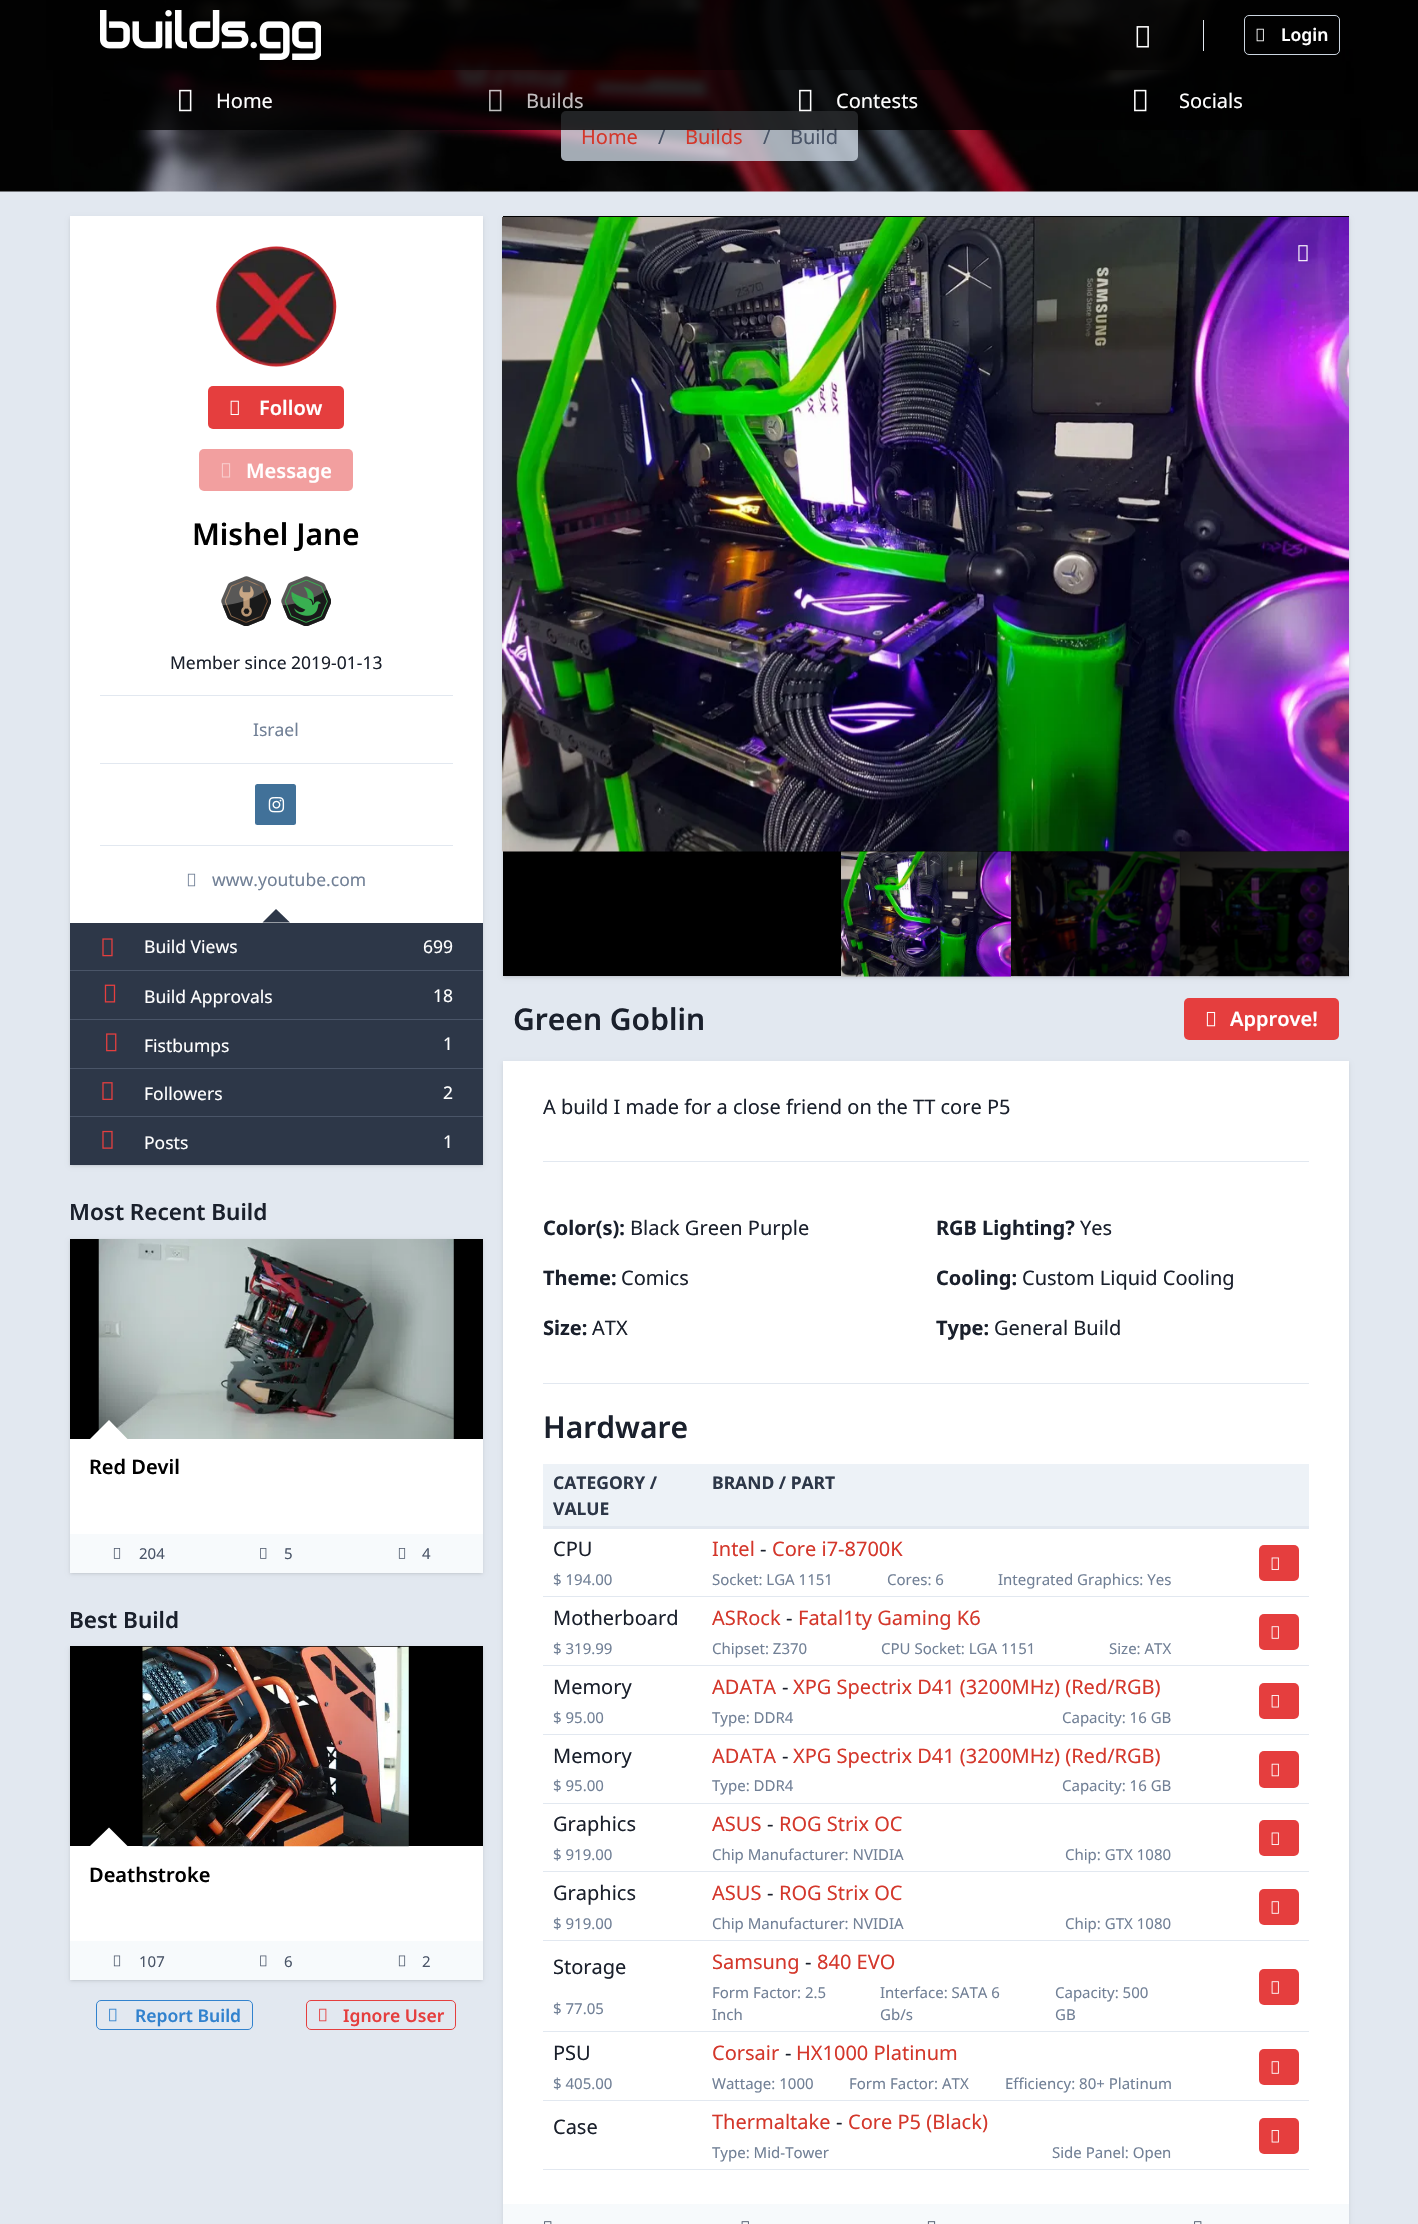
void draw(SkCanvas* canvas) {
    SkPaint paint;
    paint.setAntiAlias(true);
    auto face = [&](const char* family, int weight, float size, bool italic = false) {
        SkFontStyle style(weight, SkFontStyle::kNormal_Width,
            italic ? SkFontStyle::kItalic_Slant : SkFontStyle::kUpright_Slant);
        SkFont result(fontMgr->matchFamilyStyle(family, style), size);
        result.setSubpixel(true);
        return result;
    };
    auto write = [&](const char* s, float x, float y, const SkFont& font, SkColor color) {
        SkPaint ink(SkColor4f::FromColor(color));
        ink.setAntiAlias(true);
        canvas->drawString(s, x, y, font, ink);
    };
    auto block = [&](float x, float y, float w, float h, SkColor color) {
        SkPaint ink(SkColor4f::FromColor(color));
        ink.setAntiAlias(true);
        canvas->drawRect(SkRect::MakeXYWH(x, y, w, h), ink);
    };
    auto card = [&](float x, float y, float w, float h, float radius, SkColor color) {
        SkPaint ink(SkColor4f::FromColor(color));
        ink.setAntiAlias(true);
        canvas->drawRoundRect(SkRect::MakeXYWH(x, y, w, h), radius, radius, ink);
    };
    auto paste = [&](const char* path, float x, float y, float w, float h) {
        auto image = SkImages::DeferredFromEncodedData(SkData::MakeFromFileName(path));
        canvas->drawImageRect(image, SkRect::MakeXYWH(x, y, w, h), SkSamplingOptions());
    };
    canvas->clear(SkColorSetRGB(226, 232, 240));
    paste("pic8.png", 0, 0, 1418, 192);
    block(46, 0, 1372, 70, SkColorSetARGB(230, 0, 0, 0));
    paste("pic1.png", 100, 10, 221, 50);
    block(1203, 20, 1, 31, SkColorSetRGB(226, 232, 240));
    paste("pic2.png", 1136, 26, 13, 22);
    paint.setStyle(SkPaint::kStroke_Style);
    paint.setStrokeWidth(1);
    paint.setColor(SkColorSetRGB(203, 213, 224));
    canvas->drawRoundRect(SkRect::MakeXYWH(1244.5f, 15.5f, 95, 39), 4.5f, 4.5f, paint);
    paste("pic3.png", 1256, 28, 8, 14);
    auto kFont1 = face("Noto Sans", 600, 17.5f);
    write("Login", 1281, 41, kFont1, SK_ColorWHITE);
    card(561, 111, 297, 50, 5, SkColorSetARGB(204, 203, 213, 224));
    auto kFont2 = face("Noto Sans", 400, 20);
    write("Home", 581, 144, kFont2, SkColorSetRGB(212, 55, 43));
    write("/", 658, 144, kFont2, SkColorSetRGB(74, 85, 104));
    write("Builds", 685, 144, kFont2, SkColorSetRGB(212, 55, 43));
    write("/", 763, 144, kFont2, SkColorSetRGB(74, 85, 104));
    write("Build", 790, 144, kFont2, SkColorSetRGB(74, 85, 104));
    block(53, 70, 1365, 60, SkColorSetARGB(204, 0, 0, 0));
    paste("pic4.png", 179, 89, 13, 23);
    write("Home", 216, 108, kFont2, SK_ColorWHITE);
    paste("pic5.png", 489, 89, 13, 23);
    write("Builds", 526, 108, kFont2, SkColorSetRGB(195, 191, 192));
    paste("pic6.png", 799, 89, 13, 23);
    write("Contests", 836, 108, kFont2, SK_ColorWHITE);
    paste("pic7.png", 1134, 89, 13, 23);
    write("Socials", 1179, 108, kFont2, SK_ColorWHITE);
    paint.setStyle(SkPaint::kFill_Style);
    paint.setColor(SkColorSetARGB(26, 0, 0, 0));
    paint.setMaskFilter(SkMaskFilter::MakeBlur(kNormal_SkBlurStyle, 1));
    canvas->drawRect(SkRect::MakeXYWH(71, 219, 410, 946), paint);
    paint.setMaskFilter(nullptr);
    paint.setMaskFilter(SkMaskFilter::MakeBlur(kNormal_SkBlurStyle, 2));
    canvas->drawRect(SkRect::MakeXYWH(70, 218, 413, 948), paint);
    paint.setMaskFilter(nullptr);
    block(70, 216, 413, 707, SK_ColorWHITE);
    paste("pic9.png", 216, 246, 121, 121);
    card(208, 386, 136, 43, 5, SkColorSetRGB(229, 62, 62));
    paste("pic10.png", 230, 400, 9, 15);
    auto kFont3 = face("Noto Sans", 600, 20);
    write("Follow", 259, 415, kFont3, SK_ColorWHITE);
    card(199, 449, 154, 42, 5, SkColorSetRGB(242, 159, 159));
    paste("pic11.png", 221, 463, 10, 15);
    write("Message", 246, 478, kFont3, SK_ColorWHITE);
    auto kFont4 = face("Noto Sans", 600, 30);
    write("Mishel Jane", 192, 545, kFont4, SK_ColorBLACK);
    paste("pic12.png", 221, 576, 50, 50);
    paste("pic13.png", 281, 576, 50, 50);
    auto kFont5 = face("Noto Sans", 400, 17.5f);
    write("Member since 2019-01-13", 170, 669, kFont5, SkColorSetRGB(26, 32, 44));
    block(100, 695, 353, 1, SkColorSetRGB(226, 232, 240));
    write("Israel", 253, 736, kFont5, SkColorSetRGB(113, 128, 150));
    block(100, 763, 353, 1, SkColorSetRGB(226, 232, 240));
    card(255, 784, 41, 41, 2.5f, SkColorSetRGB(65, 113, 153));
    paste("pic14.png", 268, 797, 17, 16);
    block(100, 845, 353, 1, SkColorSetRGB(226, 232, 240));
    paste("pic15.png", 187, 873, 9, 14);
    write("www.youtube.com", 212, 886, kFont5, SkColorSetRGB(113, 128, 150));
    block(70, 923, 413, 242, SkColorSetRGB(45, 55, 72));
    paint.setColor(SkColorSetRGB(45, 55, 72));
    canvas->drawPath(SkPathBuilder().moveTo(290, 922.5f).lineTo(262.5f, 922.5f).lineTo(276, 909).close().detach(), paint);
    block(70, 970, 413, 1, SkColorSetRGB(74, 85, 104));
    paste("pic16.png", 102, 938, 11, 19);
    write("Build Views", 144, 953, kFont5, SK_ColorWHITE);
    write("699", 423, 953, kFont5, SK_ColorWHITE);
    block(70, 1019, 413, 1, SkColorSetRGB(74, 85, 104));
    paste("pic17.png", 104, 984, 12, 19);
    write("Build Approvals", 144, 1003, kFont5, SK_ColorWHITE);
    write("18", 433, 1002, kFont5, SK_ColorWHITE);
    block(70, 1068, 413, 1, SkColorSetRGB(74, 85, 104));
    paste("pic18.png", 106, 1033, 11, 19);
    write("Fistbumps", 144, 1052, kFont5, SK_ColorWHITE);
    write("1", 443, 1050, kFont5, SK_ColorWHITE);
    block(70, 1116, 413, 1, SkColorSetRGB(74, 85, 104));
    paste("pic19.png", 102, 1082, 11, 18);
    write("Followers", 144, 1100, kFont5, SK_ColorWHITE);
    write("2", 443, 1099, kFont5, SK_ColorWHITE);
    paste("pic20.png", 102, 1130, 11, 19);
    write("Posts", 144, 1149, kFont5, SK_ColorWHITE);
    write("1", 443, 1148, kFont5, SK_ColorWHITE);
    auto kFont6 = face("Noto Sans", 600, 22.5f);
    write("Most Recent Build", 69, 1220, kFont6, SkColorSetRGB(26, 32, 44));
    paint.setColor(SkColorSetARGB(26, 0, 0, 0));
    paint.setMaskFilter(SkMaskFilter::MakeBlur(kNormal_SkBlurStyle, 1));
    canvas->drawRect(SkRect::MakeXYWH(71, 1241, 410, 332), paint);
    paint.setMaskFilter(nullptr);
    paint.setMaskFilter(SkMaskFilter::MakeBlur(kNormal_SkBlurStyle, 2));
    canvas->drawRect(SkRect::MakeXYWH(70, 1240, 413, 334), paint);
    paint.setMaskFilter(nullptr);
    block(70, 1439, 413, 95, SK_ColorWHITE);
    block(70, 1239, 413, 200, SK_ColorBLACK);
    paste("pic21.png", 98, 1239, 356, 200);
    paint.setColor(SK_ColorWHITE);
    canvas->drawPath(SkPathBuilder().moveTo(127.5f, 1439).lineTo(90, 1439).lineTo(109, 1420).close().detach(), paint);
    write("Red Devil", 89, 1474, kFont3, SK_ColorBLACK);
    block(70, 1534, 413, 39, SkColorSetRGB(247, 250, 252));
    paste("pic22.png", 113, 1548, 8, 11);
    auto kFont7 = face("Noto Sans", 400, 15);
    write("204", 139, 1559, kFont7, SkColorSetRGB(74, 85, 104));
    paste("pic23.png", 260, 1548, 7, 11);
    write("5", 284, 1559, kFont7, SkColorSetRGB(74, 85, 104));
    paste("pic22.png", 398, 1548, 8, 11);
    write("4", 422, 1559, kFont7, SkColorSetRGB(74, 85, 104));
    write("Best Build", 69, 1628, kFont6, SkColorSetRGB(26, 32, 44));
    paint.setColor(SkColorSetARGB(26, 0, 0, 0));
    paint.setMaskFilter(SkMaskFilter::MakeBlur(kNormal_SkBlurStyle, 1));
    canvas->drawRect(SkRect::MakeXYWH(71, 1649, 410, 331), paint);
    paint.setMaskFilter(nullptr);
    paint.setMaskFilter(SkMaskFilter::MakeBlur(kNormal_SkBlurStyle, 2));
    canvas->drawRect(SkRect::MakeXYWH(70, 1648, 413, 333), paint);
    paint.setMaskFilter(nullptr);
    block(70, 1846, 413, 95, SK_ColorWHITE);
    block(70, 1646, 413, 200, SK_ColorBLACK);
    paint.setColor(SK_ColorWHITE);
    canvas->drawPath(SkPathBuilder().moveTo(127.5f, 1846).lineTo(90, 1846).lineTo(109, 1827.5f).close().detach(), paint);
    paste("pic24.png", 142, 1646, 267, 201);
    write("Deathstroke", 89, 1882, kFont3, SK_ColorBLACK);
    block(70, 1941, 413, 39, SkColorSetRGB(247, 250, 252));
    paste("pic25.png", 113, 1955, 8, 12);
    write("107", 139, 1967, kFont7, SkColorSetRGB(74, 85, 104));
    paste("pic26.png", 260, 1955, 7, 12);
    write("6", 284, 1967, kFont7, SkColorSetRGB(74, 85, 104));
    paste("pic25.png", 398, 1955, 8, 12);
    write("2", 422, 1967, kFont7, SkColorSetRGB(74, 85, 104));
    paint.setStyle(SkPaint::kStroke_Style);
    paint.setColor(SkColorSetRGB(49, 130, 206));
    canvas->drawRoundRect(SkRect::MakeXYWH(96.5f, 2000.5f, 156, 29), 4.5f, 4.5f, paint);
    paste("pic27.png", 109, 2008, 8, 14);
    write("Report Build", 135, 2022, kFont1, SkColorSetRGB(49, 130, 206));
    paint.setColor(SkColorSetRGB(229, 62, 62));
    canvas->drawRoundRect(SkRect::MakeXYWH(306.5f, 2000.5f, 149, 29), 4.5f, 4.5f, paint);
    paste("pic28.png", 319, 2008, 8, 14);
    write("Ignore User", 343, 2022, kFont1, SkColorSetRGB(229, 62, 62));
    paint.setStyle(SkPaint::kFill_Style);
    paint.setColor(SkColorSetARGB(26, 0, 0, 0));
    paint.setMaskFilter(SkMaskFilter::MakeBlur(kNormal_SkBlurStyle, 1));
    canvas->drawRect(SkRect::MakeXYWH(504, 219, 844, 757), paint);
    paint.setMaskFilter(nullptr);
    paint.setMaskFilter(SkMaskFilter::MakeBlur(kNormal_SkBlurStyle, 2));
    canvas->drawRect(SkRect::MakeXYWH(503, 218, 846, 760), paint);
    paint.setMaskFilter(nullptr);
    block(503, 216, 846, 760, SK_ColorBLACK);
    paste("pic29.png", 502, 217, 847, 635);
    paste("pic30.png", 1298, 245, 10, 17);
    block(841, 851, 170, 1, SK_ColorBLACK);
    paste("pic31.png", 841, 851, 170, 126);
    block(1011, 851, 169, 1, SkColorSetARGB(77, 0, 0, 0));
    paste("pic32.png", 1010, 851, 170, 126);
    block(1180, 851, 169, 1, SkColorSetARGB(77, 0, 0, 0));
    paste("pic33.png", 1179, 851, 170, 126);
    paste("pic34.png", 1348, 852, 1, 125);
    write("Green Goblin", 513, 1030, kFont4, SkColorSetRGB(26, 32, 44));
    card(1184, 998, 155, 42, 5, SkColorSetRGB(229, 62, 62));
    paste("pic35.png", 1206, 1011, 10, 16);
    write("Approve!", 1230, 1026, kFont3, SK_ColorWHITE);
    paint.setMaskFilter(SkMaskFilter::MakeBlur(kNormal_SkBlurStyle, 2));
    canvas->drawRect(SkRect::MakeXYWH(503, 1063, 846, 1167), paint);
    paint.setMaskFilter(nullptr);
    block(503, 1061, 846, 1143, SK_ColorWHITE);
    block(543, 1161, 766, 1, SkColorSetRGB(226, 232, 240));
    write("A build I made for a close friend on the TT core P5", 543, 1114, kFont2, SkColorSetRGB(26, 32, 44));
    auto kFont8 = face("Noto Sans", 700, 20);
    write("Color(s):", 543, 1235, kFont8, SkColorSetRGB(26, 32, 44));
    write("Black Green Purple", 630, 1235, kFont2, SkColorSetRGB(26, 32, 44));
    write("RGB Lighting?", 936, 1235, kFont8, SkColorSetRGB(26, 32, 44));
    write("Yes", 1080, 1235, kFont2, SkColorSetRGB(26, 32, 44));
    write("Theme:", 543, 1285, kFont8, SkColorSetRGB(26, 32, 44));
    write("Comics", 621, 1285, kFont2, SkColorSetRGB(26, 32, 44));
    write("Cooling:", 936, 1285, kFont8, SkColorSetRGB(26, 32, 44));
    write("Custom Liquid Cooling", 1022, 1285, kFont2, SkColorSetRGB(26, 32, 44));
    write("Size:", 543, 1335, kFont8, SkColorSetRGB(26, 32, 44));
    write("ATX", 592, 1335, kFont2, SkColorSetRGB(26, 32, 44));
    write("Type:", 936, 1335, kFont8, SkColorSetRGB(26, 32, 44));
    write("General Build", 994, 1335, kFont2, SkColorSetRGB(26, 32, 44));
    block(543, 1383, 766, 1, SkColorSetRGB(226, 232, 240));
    write("Hardware", 543, 1438, kFont4, SkColorSetRGB(26, 32, 44));
    block(543, 1464, 766, 62, SkColorSetRGB(237, 242, 247));
    block(543, 1526, 766, 3, SkColorSetRGB(226, 232, 240));
    auto kFont9 = face("Noto Sans", 700, 17.5f);
    write("CATEGORY /", 553, 1489, kFont9, SkColorSetRGB(45, 55, 72));
    write("VALUE", 553, 1515, kFont9, SkColorSetRGB(45, 55, 72));
    write("BRAND / PART", 712, 1489, kFont9, SkColorSetRGB(45, 55, 72));
    block(543, 1596, 766, 1, SkColorSetRGB(226, 232, 240));
    write("CPU", 553, 1556, kFont2, SkColorSetRGB(26, 32, 44));
    write("$ 194.00", 553, 1585, kFont7, SkColorSetRGB(113, 128, 150));
    write("Intel", 712, 1556, kFont2, SkColorSetRGB(212, 55, 43));
    write("-", 760, 1556, kFont2, SkColorSetRGB(26, 32, 44));
    write("Core i7-8700K", 772, 1556, kFont2, SkColorSetRGB(212, 55, 43));
    write("Socket: LGA 1151", 712, 1585, kFont7, SkColorSetRGB(113, 128, 150));
    write("Cores: 6", 887, 1585, kFont7, SkColorSetRGB(113, 128, 150));
    write("Integrated Graphics: Yes", 998, 1585, kFont7, SkColorSetRGB(113, 128, 150));
    card(1259, 1545, 40, 36, 5, SkColorSetRGB(229, 62, 62));
    paste("pic36.png", 1271, 1557, 8, 13);
    block(543, 1665, 766, 1, SkColorSetRGB(226, 232, 240));
    write("Motherboard", 553, 1625, kFont2, SkColorSetRGB(26, 32, 44));
    write("$ 319.99", 553, 1654, kFont7, SkColorSetRGB(113, 128, 150));
    write("ASRock", 712, 1625, kFont2, SkColorSetRGB(212, 55, 43));
    write("-", 786, 1625, kFont2, SkColorSetRGB(26, 32, 44));
    write("Fatal1ty Gaming K6", 798, 1625, kFont2, SkColorSetRGB(212, 55, 43));
    write("Chipset: Z370", 712, 1654, kFont7, SkColorSetRGB(113, 128, 150));
    write("CPU Socket: LGA 1151", 881, 1654, kFont7, SkColorSetRGB(113, 128, 150));
    write("Size: ATX", 1109, 1654, kFont7, SkColorSetRGB(113, 128, 150));
    card(1259, 1614, 40, 36, 5, SkColorSetRGB(229, 62, 62));
    paste("pic37.png", 1271, 1626, 8, 13);
    block(543, 1734, 766, 1, SkColorSetRGB(226, 232, 240));
    write("Memory", 553, 1694, kFont2, SkColorSetRGB(26, 32, 44));
    write("$ 95.00", 553, 1723, kFont7, SkColorSetRGB(113, 128, 150));
    write("ADATA", 712, 1694, kFont2, SkColorSetRGB(212, 55, 43));
    write("-", 782, 1694, kFont2, SkColorSetRGB(26, 32, 44));
    write("XPG Spectrix D41 (3200MHz) (Red/RGB)", 793, 1694, kFont2, SkColorSetRGB(212, 55, 43));
    write("Type: DDR4", 712, 1723, kFont7, SkColorSetRGB(113, 128, 150));
    write("Capacity: 16 GB", 1062, 1723, kFont7, SkColorSetRGB(113, 128, 150));
    card(1259, 1683, 40, 36, 5, SkColorSetRGB(229, 62, 62));
    paste("pic38.png", 1271, 1695, 8, 13);
    block(543, 1803, 766, 1, SkColorSetRGB(226, 232, 240));
    write("Memory", 553, 1763, kFont2, SkColorSetRGB(26, 32, 44));
    write("$ 95.00", 553, 1791, kFont7, SkColorSetRGB(113, 128, 150));
    write("ADATA", 712, 1763, kFont2, SkColorSetRGB(212, 55, 43));
    write("-", 782, 1763, kFont2, SkColorSetRGB(26, 32, 44));
    write("XPG Spectrix D41 (3200MHz) (Red/RGB)", 793, 1763, kFont2, SkColorSetRGB(212, 55, 43));
    write("Type: DDR4", 712, 1791, kFont7, SkColorSetRGB(113, 128, 150));
    write("Capacity: 16 GB", 1062, 1791, kFont7, SkColorSetRGB(113, 128, 150));
    card(1259, 1751, 40, 37, 5, SkColorSetRGB(229, 62, 62));
    paste("pic39.png", 1271, 1763, 8, 14);
    block(543, 1871, 766, 1, SkColorSetRGB(226, 232, 240));
    write("Graphics", 553, 1831, kFont2, SkColorSetRGB(26, 32, 44));
    write("$ 919.00", 553, 1860, kFont7, SkColorSetRGB(113, 128, 150));
    write("ASUS", 712, 1831, kFont2, SkColorSetRGB(212, 55, 43));
    write("-", 767, 1831, kFont2, SkColorSetRGB(26, 32, 44));
    write("ROG Strix OC", 779, 1831, kFont2, SkColorSetRGB(212, 55, 43));
    write("Chip Manufacturer: NVIDIA", 712, 1860, kFont7, SkColorSetRGB(113, 128, 150));
    write("Chip: GTX 1080", 1065, 1860, kFont7, SkColorSetRGB(113, 128, 150));
    card(1259, 1820, 40, 36, 5, SkColorSetRGB(229, 62, 62));
    paste("pic36.png", 1271, 1832, 8, 13);
    block(543, 1940, 766, 1, SkColorSetRGB(226, 232, 240));
    write("Graphics", 553, 1900, kFont2, SkColorSetRGB(26, 32, 44));
    write("$ 919.00", 553, 1929, kFont7, SkColorSetRGB(113, 128, 150));
    write("ASUS", 712, 1900, kFont2, SkColorSetRGB(212, 55, 43));
    write("-", 767, 1900, kFont2, SkColorSetRGB(26, 32, 44));
    write("ROG Strix OC", 779, 1900, kFont2, SkColorSetRGB(212, 55, 43));
    write("Chip Manufacturer: NVIDIA", 712, 1929, kFont7, SkColorSetRGB(113, 128, 150));
    write("Chip: GTX 1080", 1065, 1929, kFont7, SkColorSetRGB(113, 128, 150));
    card(1259, 1889, 40, 36, 5, SkColorSetRGB(229, 62, 62));
    paste("pic37.png", 1271, 1901, 8, 13);
    block(543, 2031, 766, 1, SkColorSetRGB(226, 232, 240));
    write("Storage", 553, 1974, kFont2, SkColorSetRGB(26, 32, 44));
    write("$ 77.05", 553, 2014, kFont7, SkColorSetRGB(113, 128, 150));
    write("Samsung", 712, 1969, kFont2, SkColorSetRGB(212, 55, 43));
    write("-", 805, 1969, kFont2, SkColorSetRGB(26, 32, 44));
    write("840 EVO", 817, 1969, kFont2, SkColorSetRGB(212, 55, 43));
    write("Form Factor: 2.5", 712, 1998, kFont7, SkColorSetRGB(113, 128, 150));
    write("Inch", 712, 2020, kFont7, SkColorSetRGB(113, 128, 150));
    write("Interface: SATA 6", 880, 1998, kFont7, SkColorSetRGB(113, 128, 150));
    write("Gb/s", 880, 2020, kFont7, SkColorSetRGB(113, 128, 150));
    write("Capacity: 500", 1055, 1998, kFont7, SkColorSetRGB(113, 128, 150));
    write("GB", 1055, 2020, kFont7, SkColorSetRGB(113, 128, 150));
    card(1259, 1969, 40, 36, 5, SkColorSetRGB(229, 62, 62));
    paste("pic37.png", 1271, 1981, 8, 13);
    block(543, 2100, 766, 1, SkColorSetRGB(226, 232, 240));
    write("PSU", 553, 2060, kFont2, SkColorSetRGB(26, 32, 44));
    write("$ 405.00", 553, 2089, kFont7, SkColorSetRGB(113, 128, 150));
    write("Corsair", 712, 2060, kFont2, SkColorSetRGB(212, 55, 43));
    write("-", 785, 2060, kFont2, SkColorSetRGB(26, 32, 44));
    write("HX1000 Platinum", 796, 2060, kFont2, SkColorSetRGB(212, 55, 43));
    write("Wattage: 1000", 712, 2089, kFont7, SkColorSetRGB(113, 128, 150));
    write("Form Factor: ATX", 849, 2089, kFont7, SkColorSetRGB(113, 128, 150));
    write("Efficiency: 80+ Platinum", 1005, 2089, kFont7, SkColorSetRGB(113, 128, 150));
    card(1259, 2049, 40, 36, 5, SkColorSetRGB(229, 62, 62));
    paste("pic37.png", 1271, 2061, 8, 13);
    block(543, 2169, 766, 1, SkColorSetRGB(226, 232, 240));
    write("Case", 553, 2134, kFont2, SkColorSetRGB(26, 32, 44));
    write("Thermaltake", 712, 2129, kFont2, SkColorSetRGB(212, 55, 43));
    write("-", 836, 2129, kFont2, SkColorSetRGB(26, 32, 44));
    write("Core P5 (Black)", 848, 2129, kFont2, SkColorSetRGB(212, 55, 43));
    write("Type: Mid-Tower", 712, 2158, kFont7, SkColorSetRGB(113, 128, 150));
    write("Side Panel: Open", 1052, 2158, kFont7, SkColorSetRGB(113, 128, 150));
    card(1259, 2118, 40, 36, 5, SkColorSetRGB(229, 62, 62));
    paste("pic38.png", 1271, 2130, 8, 13);
    block(503, 2204, 846, 20, SkColorSetRGB(247, 250, 252));
    paste("pic40.png", 544, 2221, 8, 3);
    paste("pic41.png", 741, 2221, 8, 3);
    paste("pic42.png", 927, 2221, 9, 3);
    paste("pic40.png", 1194, 2221, 8, 3);
}
